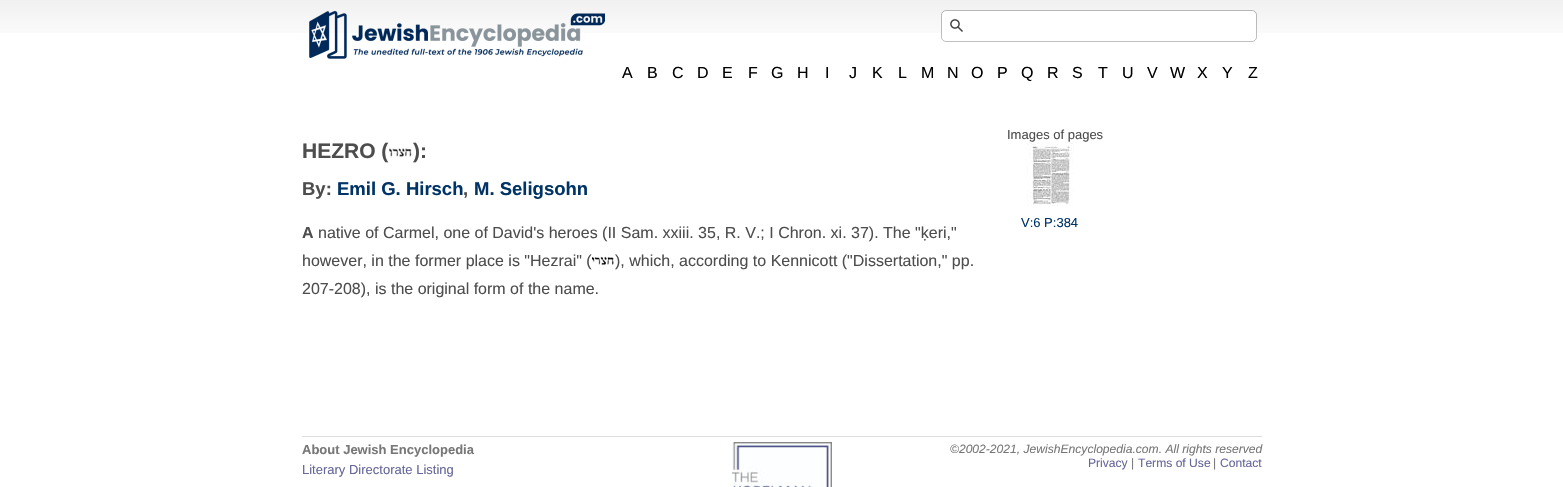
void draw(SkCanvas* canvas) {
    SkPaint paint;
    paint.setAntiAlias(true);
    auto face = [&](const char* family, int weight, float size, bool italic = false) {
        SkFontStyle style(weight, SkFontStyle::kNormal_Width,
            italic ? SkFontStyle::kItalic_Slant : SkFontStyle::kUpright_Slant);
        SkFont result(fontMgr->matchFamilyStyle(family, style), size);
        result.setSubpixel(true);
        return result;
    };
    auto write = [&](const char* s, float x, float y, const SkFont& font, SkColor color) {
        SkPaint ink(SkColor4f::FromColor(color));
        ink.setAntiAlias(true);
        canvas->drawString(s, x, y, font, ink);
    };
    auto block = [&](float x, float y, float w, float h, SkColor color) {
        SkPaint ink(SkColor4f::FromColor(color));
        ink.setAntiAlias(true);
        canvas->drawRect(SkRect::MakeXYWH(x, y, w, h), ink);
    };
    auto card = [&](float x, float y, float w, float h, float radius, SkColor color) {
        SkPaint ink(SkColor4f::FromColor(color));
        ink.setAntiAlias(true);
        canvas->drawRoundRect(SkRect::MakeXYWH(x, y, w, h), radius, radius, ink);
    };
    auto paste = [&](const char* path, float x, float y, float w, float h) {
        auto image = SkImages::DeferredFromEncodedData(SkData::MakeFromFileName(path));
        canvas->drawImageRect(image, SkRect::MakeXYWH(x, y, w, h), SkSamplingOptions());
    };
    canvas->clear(SK_ColorWHITE);
    paste("pic1.png", 0, 0, 1563, 33);
    paste("pic2.png", 309, 10, 296, 49);
    card(942, 11, 314, 30, 4, SK_ColorWHITE);
    paste("pic3.png", 950, 19, 13, 13);
    paint.setStyle(SkPaint::kStroke_Style);
    paint.setStrokeWidth(1);
    paint.setColor(SkColorSetARGB(64, 0, 0, 0));
    canvas->drawRoundRect(SkRect::MakeXYWH(941.5f, 10.5f, 315, 31), 4.5f, 4.5f, paint);
    auto kFont1 = face("Liberation Sans", 400, 16);
    write("A", 622, 78, kFont1, SkColorSetRGB(1, 1, 1));
    write("B", 647, 78, kFont1, SkColorSetRGB(1, 1, 1));
    write("C", 672, 78, kFont1, SkColorSetRGB(1, 1, 1));
    write("D", 697, 78, kFont1, SkColorSetRGB(1, 1, 1));
    write("E", 722, 78, kFont1, SkColorSetRGB(1, 1, 1));
    write("F", 748, 78, kFont1, SkColorSetRGB(1, 1, 1));
    write("G", 771, 78, kFont1, SkColorSetRGB(1, 1, 1));
    write("H", 797, 78, kFont1, SkColorSetRGB(1, 1, 1));
    write("I", 825, 78, kFont1, SkColorSetRGB(1, 1, 1));
    write("J", 849, 78, kFont1, SkColorSetRGB(1, 1, 1));
    write("K", 872, 78, kFont1, SkColorSetRGB(1, 1, 1));
    write("L", 898, 78, kFont1, SkColorSetRGB(1, 1, 1));
    write("M", 921, 78, kFont1, SkColorSetRGB(1, 1, 1));
    write("N", 947, 78, kFont1, SkColorSetRGB(1, 1, 1));
    write("O", 971, 78, kFont1, SkColorSetRGB(1, 1, 1));
    write("P", 997, 78, kFont1, SkColorSetRGB(1, 1, 1));
    write("Q", 1021, 78, kFont1, SkColorSetRGB(1, 1, 1));
    write("R", 1047, 78, kFont1, SkColorSetRGB(1, 1, 1));
    write("S", 1072, 78, kFont1, SkColorSetRGB(1, 1, 1));
    write("T", 1098, 78, kFont1, SkColorSetRGB(1, 1, 1));
    write("U", 1122, 78, kFont1, SkColorSetRGB(1, 1, 1));
    write("V", 1147, 78, kFont1, SkColorSetRGB(1, 1, 1));
    write("W", 1170, 78, kFont1, SkColorSetRGB(1, 1, 1));
    write("X", 1197, 78, kFont1, SkColorSetRGB(1, 1, 1));
    write("Y", 1222, 78, kFont1, SkColorSetRGB(1, 1, 1));
    write("Z", 1248, 78, kFont1, SkColorSetRGB(1, 1, 1));
    auto kFont2 = face("Liberation Sans", 700, 21);
    write("HEZRO (", 302, 158, kFont2, SkColorSetRGB(77, 77, 77));
    paste("pic4.png", 388, 147, 24, 11);
    write("):", 413, 158, kFont2, SkColorSetRGB(77, 77, 77));
    auto kFont3 = face("Liberation Sans", 700, 18.5f);
    write("By:", 302, 195, kFont3, SkColorSetRGB(77, 77, 77));
    write("Emil G. Hirsch", 337, 195, kFont3, SkColorSetRGB(0, 51, 102));
    write(",", 463, 195, kFont3, SkColorSetRGB(77, 77, 77));
    write("M. Seligsohn", 474, 195, kFont3, SkColorSetRGB(0, 51, 102));
    auto kFont4 = face("Liberation Sans", 700, 16);
    write("A", 302, 238, kFont4, SkColorSetRGB(77, 77, 77));
    write("native of Carmel, one of David's heroes (II Sam. xxiii. 35, R. V.; I Chron. xi. 37). The \"ḳeri,\"", 318, 238, kFont1, SkColorSetRGB(77, 77, 77));
    write("however, in the former place is \"Hezrai\" (", 302, 266, kFont1, SkColorSetRGB(77, 77, 77));
    paste("pic5.png", 592, 256, 22, 9);
    write("), which, according to Kennicott (\"Dissertation,\" pp.", 615, 266, kFont1, SkColorSetRGB(77, 77, 77));
    write("207-208), is the original form of the name.", 302, 294, kFont1, SkColorSetRGB(77, 77, 77));
    auto kFont5 = face("Liberation Sans", 400, 13);
    write("Images of pages", 1007, 139, kFont5, SkColorSetRGB(77, 77, 77));
    paste("pic6.png", 1026, 142, 48, 64);
    write("V:6 P:384", 1021, 227, kFont5, SkColorSetRGB(0, 51, 102));
    block(302, 436, 960, 1, SkColorSetRGB(221, 221, 221));
    auto kFont6 = face("Liberation Sans", 700, 13);
    write("About Jewish Encyclopedia", 302, 454, kFont6, SkColorSetRGB(119, 119, 119));
    write("Literary Directorate Listing", 302, 474, kFont5, SkColorSetRGB(102, 102, 153));
    paste("pic7.png", 732, 442, 100, 45);
    auto kFont7 = face("Liberation Sans", 400, 12.1f, true);
    write("©2002-2021, JewishEncyclopedia.com. All rights reserved", 950, 453, kFont7, SkColorSetRGB(119, 119, 119));
    auto kFont8 = face("Liberation Sans", 400, 12.1f);
    write("Privacy", 1088, 467, kFont8, SkColorSetRGB(102, 102, 153));
    write("|", 1131, 467, kFont8, SkColorSetRGB(119, 119, 119));
    write("Terms of Use", 1138, 467, kFont8, SkColorSetRGB(102, 102, 153));
    write("|", 1213, 467, kFont8, SkColorSetRGB(119, 119, 119));
    write("Contact", 1220, 467, kFont8, SkColorSetRGB(102, 102, 153));
}
